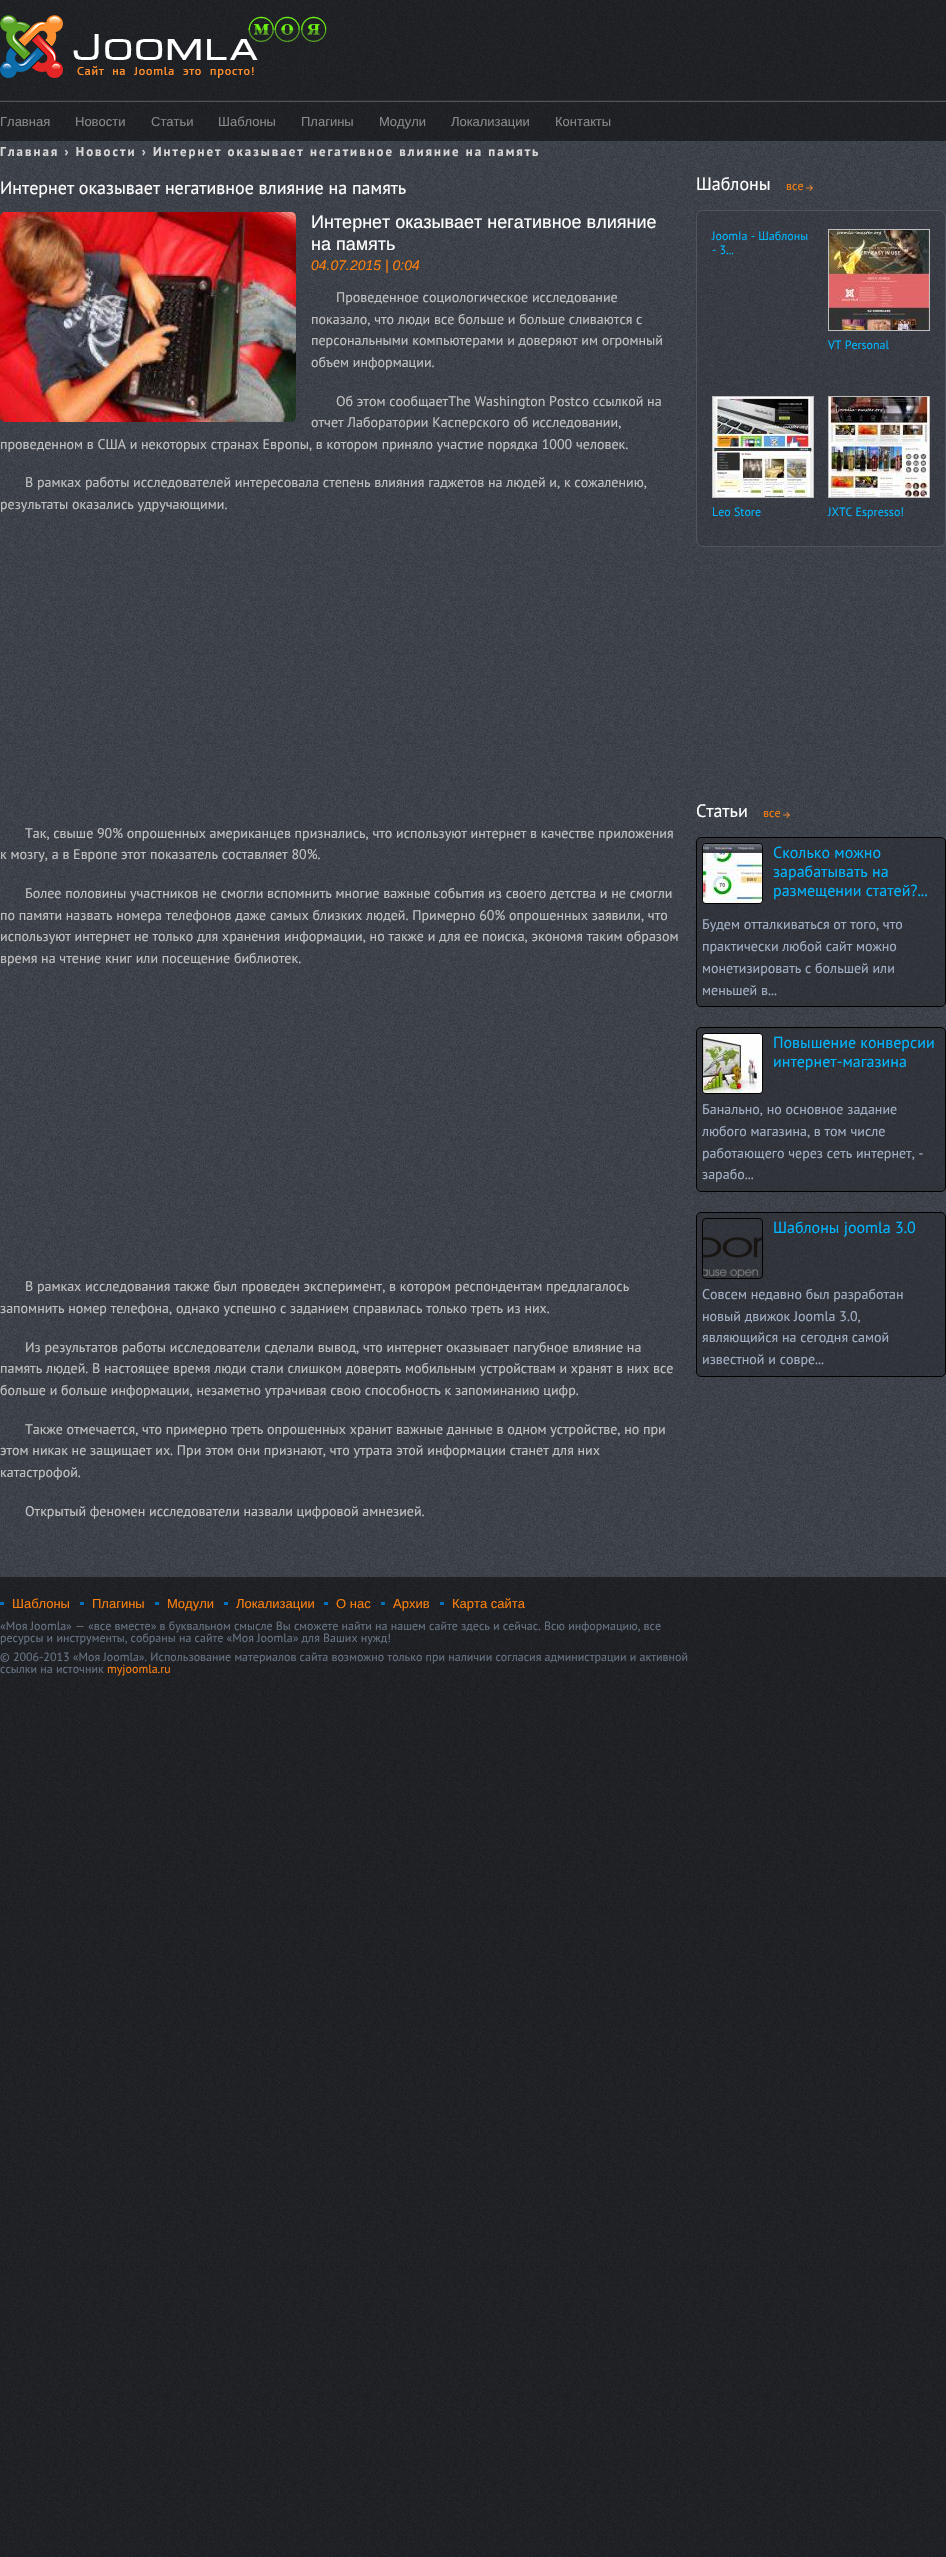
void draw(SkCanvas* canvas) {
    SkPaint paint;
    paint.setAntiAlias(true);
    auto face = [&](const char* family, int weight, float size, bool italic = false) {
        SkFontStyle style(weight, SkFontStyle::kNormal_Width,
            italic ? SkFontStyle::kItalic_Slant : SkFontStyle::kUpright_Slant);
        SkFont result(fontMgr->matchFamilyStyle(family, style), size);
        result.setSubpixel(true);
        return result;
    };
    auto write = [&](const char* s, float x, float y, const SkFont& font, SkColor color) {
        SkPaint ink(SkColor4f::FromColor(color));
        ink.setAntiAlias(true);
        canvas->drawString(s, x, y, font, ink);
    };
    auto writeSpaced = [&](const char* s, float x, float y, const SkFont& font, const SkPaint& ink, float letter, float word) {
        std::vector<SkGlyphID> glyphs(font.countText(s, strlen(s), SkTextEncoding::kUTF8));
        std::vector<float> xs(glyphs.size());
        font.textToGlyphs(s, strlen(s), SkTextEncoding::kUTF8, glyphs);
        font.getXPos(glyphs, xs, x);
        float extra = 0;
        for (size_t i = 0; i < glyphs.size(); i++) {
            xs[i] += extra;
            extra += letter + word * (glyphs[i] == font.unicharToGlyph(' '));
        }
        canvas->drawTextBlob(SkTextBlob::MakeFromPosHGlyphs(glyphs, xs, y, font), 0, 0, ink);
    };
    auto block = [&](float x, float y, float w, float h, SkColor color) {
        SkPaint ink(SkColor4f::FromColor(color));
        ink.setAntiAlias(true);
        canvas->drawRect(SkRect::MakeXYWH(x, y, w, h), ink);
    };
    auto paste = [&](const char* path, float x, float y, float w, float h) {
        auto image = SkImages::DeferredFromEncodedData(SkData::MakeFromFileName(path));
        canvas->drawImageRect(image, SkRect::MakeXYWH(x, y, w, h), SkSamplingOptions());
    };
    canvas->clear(SK_ColorWHITE);
    paste("pic1.png", 0, 0, 946, 2557);
    block(0, 100, 946, 1, SkColorSetRGB(41, 44, 48));
    paste("pic2.png", 0, 15, 327, 63);
    block(0, 101, 946, 1, SkColorSetRGB(80, 85, 93));
    auto kFont1 = face("Liberation Sans", 400, 13);
    write("Главная", 0, 126, kFont1, SkColorSetRGB(137, 137, 137));
    write("Новости", 75, 126, kFont1, SkColorSetRGB(137, 137, 137));
    write("Статьи", 151, 126, kFont1, SkColorSetRGB(137, 137, 137));
    write("Шаблоны", 218, 126, kFont1, SkColorSetRGB(137, 137, 137));
    write("Плагины", 301, 126, kFont1, SkColorSetRGB(137, 137, 137));
    write("Модули", 379, 126, kFont1, SkColorSetRGB(137, 137, 137));
    write("Локализации", 451, 126, kFont1, SkColorSetRGB(137, 137, 137));
    write("Контакты", 555, 126, kFont1, SkColorSetRGB(137, 137, 137));
    paste("pic3.png", 0, 141, 946, 1436);
    auto kFont2 = face("PT Sans", 700, 12.9f);
    paint.setColor(SkColorSetRGB(215, 215, 215));
    writeSpaced("Главная › Новости › Интернет оказывает негативное влияние на память", 0, 156, kFont2, paint, 2, 0);
    auto kFont3 = face("PT Sans", 400, 18);
    write("Интернет оказывает негативное влияние на память", 0, 194, kFont3, SK_ColorWHITE);
    paste("pic4.png", 0, 212, 296, 210);
    auto kFont4 = face("Liberation Sans", 400, 18);
    write("Интернет оказывает негативное влияние", 311, 228, kFont4, SK_ColorWHITE);
    write("на память", 311, 250, kFont4, SK_ColorWHITE);
    auto kFont5 = face("Liberation Sans", 400, 14, true);
    write("04.07.2015 | 0:04", 311, 270, kFont5, SkColorSetRGB(250, 127, 15));
    auto kFont6 = face("PT Sans", 400, 14);
    write("Проведенное социологическое исследование", 336, 302, kFont6, SkColorSetRGB(194, 194, 194));
    write("показало, что люди все больше и больше сливаются с", 311, 324, kFont6, SkColorSetRGB(194, 194, 194));
    write("персональными компьютерами и доверяют им огромный", 311, 345, kFont6, SkColorSetRGB(194, 194, 194));
    write("объем информации.", 311, 367, kFont6, SkColorSetRGB(194, 194, 194));
    write("Об этом сообщаетThe Washington Postсо ссылкой на", 336, 406, kFont6, SkColorSetRGB(194, 194, 194));
    write("отчет Лаборатории Касперского об исследовании,", 311, 427, kFont6, SkColorSetRGB(194, 194, 194));
    write("проведенном в США и некоторых странах Европы, в котором приняло участие порядка 1000 человек.", 0, 449, kFont6, SkColorSetRGB(194, 194, 194));
    write("В рамках работы исследователей интересовала степень влияния гаджетов на людей и, к сожалению,", 25, 487, kFont6, SkColorSetRGB(194, 194, 194));
    write("результаты оказались удручающими.", 0, 509, kFont6, SkColorSetRGB(194, 194, 194));
    write("Так, свыше 90% опрошенных американцев признались, что используют интернет в качестве приложения", 25, 838, kFont6, SkColorSetRGB(194, 194, 194));
    write("к мозгу, а в Европе этот показатель составляет 80%.", 0, 859, kFont6, SkColorSetRGB(194, 194, 194));
    write("Более половины участников не смогли вспомнить многие важные события из своего детства и не смогли", 25, 898, kFont6, SkColorSetRGB(194, 194, 194));
    write("по памяти назвать номера телефонов даже самых близких людей. Примерно 60% опрошенных заявили, что", 0, 920, kFont6, SkColorSetRGB(194, 194, 194));
    write("используют интернет не только для хранения информации, но также и для ее поиска, экономя таким образом", 0, 941, kFont6, SkColorSetRGB(194, 194, 194));
    write("время на чтение книг или посещение библиотек.", 0, 963, kFont6, SkColorSetRGB(194, 194, 194));
    write("В рамках исследования также был проведен эксперимент, в котором респондентам предлагалось", 25, 1291, kFont6, SkColorSetRGB(194, 194, 194));
    write("запомнить номер телефона, однако успешно с заданием справилась только треть из них.", 0, 1313, kFont6, SkColorSetRGB(194, 194, 194));
    write("Из результатов работы исследователи сделали вывод, что интернет оказывает пагубное влияние на", 25, 1352, kFont6, SkColorSetRGB(194, 194, 194));
    write("память людей. В настоящее время люди стали слишком доверять мобильным устройствам и хранят в них все", 0, 1373, kFont6, SkColorSetRGB(194, 194, 194));
    write("больше и больше информации, незаметно утрачивая свою способность к запоминанию цифр.", 0, 1395, kFont6, SkColorSetRGB(194, 194, 194));
    write("Также отмечается, что примерно треть опрошенных хранит важные данные в одном устройстве, но при", 25, 1434, kFont6, SkColorSetRGB(194, 194, 194));
    write("этом никак не защищает их. При этом они признают, что утрата этой информации станет для них", 0, 1455, kFont6, SkColorSetRGB(194, 194, 194));
    write("катастрофой.", 0, 1477, kFont6, SkColorSetRGB(194, 194, 194));
    write("Открытый феномен исследователи назвали цифровой амнезией.", 25, 1516, kFont6, SkColorSetRGB(194, 194, 194));
    write("Шаблоны", 696, 190, kFont3, SK_ColorWHITE);
    auto kFont7 = face("PT Sans", 400, 12);
    write("все", 786, 190, kFont7, SkColorSetRGB(250, 127, 15));
    paste("pic5.png", 806, 185, 7, 6);
    paint.setColor(SkColorSetARGB(51, 33, 36, 40));
    canvas->drawRoundRect(SkRect::MakeXYWH(696.5f, 210.5f, 249, 336), 6.5f, 6.5f, paint);
    paint.setStyle(SkPaint::kStroke_Style);
    paint.setStrokeWidth(1);
    paint.setColor(SkColorSetRGB(80, 85, 93));
    canvas->drawRoundRect(SkRect::MakeXYWH(696.5f, 210.5f, 249, 336), 6.5f, 6.5f, paint);
    write("JооmІа - Шаблоны", 712, 240, kFont7, SkColorSetRGB(0, 182, 255));
    write("- 3...", 712, 254, kFont7, SkColorSetRGB(0, 182, 255));
    paint.setColor(SkColorSetRGB(192, 191, 192));
    canvas->drawRect(SkRect::MakeXYWH(828.5f, 229.5f, 101, 101), paint);
    paste("pic6.png", 829, 230, 100, 100);
    write("VT Personal", 828, 349, kFont7, SkColorSetRGB(0, 182, 255));
    canvas->drawRect(SkRect::MakeXYWH(712.5f, 396.5f, 101, 101), paint);
    paste("pic7.png", 713, 397, 100, 100);
    write("Leo Store", 712, 516, kFont7, SkColorSetRGB(0, 182, 255));
    canvas->drawRect(SkRect::MakeXYWH(828.5f, 396.5f, 101, 101), paint);
    paste("pic8.png", 829, 397, 100, 100);
    write("JXTC Espresso!", 828, 516, kFont7, SkColorSetRGB(0, 182, 255));
    write("Статьи", 696, 817, kFont3, SK_ColorWHITE);
    write("все", 763, 817, kFont7, SkColorSetRGB(250, 127, 15));
    paste("pic5.png", 783, 812, 7, 6);
    paint.setStyle(SkPaint::kFill_Style);
    paint.setColor(SkColorSetARGB(115, 33, 36, 40));
    canvas->drawRoundRect(SkRect::MakeXYWH(696.5f, 837.5f, 249, 169), 4.5f, 4.5f, paint);
    paint.setStyle(SkPaint::kStroke_Style);
    paint.setColor(SK_ColorBLACK);
    canvas->drawRoundRect(SkRect::MakeXYWH(696.5f, 837.5f, 249, 169), 4.5f, 4.5f, paint);
    canvas->drawRoundRect(SkRect::MakeXYWH(702.5f, 843.5f, 60, 60), 3.5f, 3.5f, paint);
    paste("pic9.png", 703, 844, 59, 59);
    auto kFont8 = face("PT Sans", 400, 16);
    write("Сколько можно", 773, 858, kFont8, SkColorSetRGB(0, 182, 255));
    write("зарабатывать на", 773, 877, kFont8, SkColorSetRGB(0, 182, 255));
    write("размещении статей?...", 773, 896, kFont8, SkColorSetRGB(0, 182, 255));
    write("Будем отталкиваться от того, что", 702, 929, kFont6, SkColorSetRGB(162, 176, 198));
    write("практически любой сайт можно", 702, 951, kFont6, SkColorSetRGB(162, 176, 198));
    write("монетизировать с большей или", 702, 973, kFont6, SkColorSetRGB(162, 176, 198));
    write("меньшей в...", 702, 995, kFont6, SkColorSetRGB(162, 176, 198));
    paint.setStyle(SkPaint::kFill_Style);
    paint.setColor(SkColorSetARGB(115, 33, 36, 40));
    canvas->drawRoundRect(SkRect::MakeXYWH(696.5f, 1027.5f, 249, 164), 4.5f, 4.5f, paint);
    paint.setStyle(SkPaint::kStroke_Style);
    paint.setColor(SK_ColorBLACK);
    canvas->drawRoundRect(SkRect::MakeXYWH(696.5f, 1027.5f, 249, 164), 4.5f, 4.5f, paint);
    canvas->drawRoundRect(SkRect::MakeXYWH(702.5f, 1033.5f, 60, 60), 3.5f, 3.5f, paint);
    paste("pic10.png", 703, 1034, 59, 59);
    write("Повышение конверсии", 773, 1048, kFont8, SkColorSetRGB(0, 182, 255));
    write("интернет-магазина", 773, 1067, kFont8, SkColorSetRGB(0, 182, 255));
    write("Банально, но основное задание", 702, 1114, kFont6, SkColorSetRGB(162, 176, 198));
    write("любого магазина, в том числе", 702, 1136, kFont6, SkColorSetRGB(162, 176, 198));
    write("работающего через сеть интернет, -", 702, 1158, kFont6, SkColorSetRGB(162, 176, 198));
    write("зарабо...", 702, 1179, kFont6, SkColorSetRGB(162, 176, 198));
    paint.setStyle(SkPaint::kFill_Style);
    paint.setColor(SkColorSetARGB(115, 33, 36, 40));
    canvas->drawRoundRect(SkRect::MakeXYWH(696.5f, 1212.5f, 249, 164), 4.5f, 4.5f, paint);
    paint.setStyle(SkPaint::kStroke_Style);
    paint.setColor(SK_ColorBLACK);
    canvas->drawRoundRect(SkRect::MakeXYWH(696.5f, 1212.5f, 249, 164), 4.5f, 4.5f, paint);
    canvas->drawRoundRect(SkRect::MakeXYWH(702.5f, 1218.5f, 60, 60), 3.5f, 3.5f, paint);
    paste("pic11.png", 703, 1237, 59, 41);
    write("Шаблоны joomla 3.0", 773, 1233, kFont8, SkColorSetRGB(0, 182, 255));
    write("Совсем недавно был разработан", 702, 1299, kFont6, SkColorSetRGB(162, 176, 198));
    write("новый движок Joomla 3.0,", 702, 1321, kFont6, SkColorSetRGB(162, 176, 198));
    write("являющийся на сегодня самой", 702, 1342, kFont6, SkColorSetRGB(162, 176, 198));
    write("известной и совре...", 702, 1364, kFont6, SkColorSetRGB(162, 176, 198));
    block(0, 1602, 4, 3, SkColorSetRGB(0, 114, 188));
    write("Шаблоны", 12, 1608, kFont1, SkColorSetRGB(250, 127, 15));
    block(80, 1602, 4, 3, SkColorSetRGB(0, 114, 188));
    write("Плагины", 92, 1608, kFont1, SkColorSetRGB(250, 127, 15));
    block(155, 1602, 4, 3, SkColorSetRGB(0, 114, 188));
    write("Модули", 167, 1608, kFont1, SkColorSetRGB(250, 127, 15));
    block(224, 1602, 4, 3, SkColorSetRGB(0, 114, 188));
    write("Локализации", 236, 1608, kFont1, SkColorSetRGB(250, 127, 15));
    block(324, 1602, 4, 3, SkColorSetRGB(0, 114, 188));
    write("О нас", 336, 1608, kFont1, SkColorSetRGB(250, 127, 15));
    block(381, 1602, 4, 3, SkColorSetRGB(0, 114, 188));
    write("Архив", 393, 1608, kFont1, SkColorSetRGB(250, 127, 15));
    block(440, 1602, 4, 3, SkColorSetRGB(0, 114, 188));
    write("Карта сайта", 452, 1608, kFont1, SkColorSetRGB(250, 127, 15));
    write("«Моя Joomla» — «все вместе» в буквальном смысле Вы сможете найти на нашем сайте здесь и сейчас. Всю информацию, все", 0, 1630, kFont7, SkColorSetRGB(103, 114, 130));
    write("ресурсы и инструменты, собраны на сайте «Моя Joomla» для Ваших нужд!", 0, 1642, kFont7, SkColorSetRGB(103, 114, 130));
    write("© 2006-2013 «Моя Joomla». Использование материалов сайта возможно только при наличии согласия администрации и активной", 0, 1661, kFont7, SkColorSetRGB(103, 114, 130));
    write("ссылки на источник", 0, 1673, kFont7, SkColorSetRGB(103, 114, 130));
    write("myjoomla.ru", 107, 1673, kFont7, SkColorSetRGB(250, 127, 15));
}
